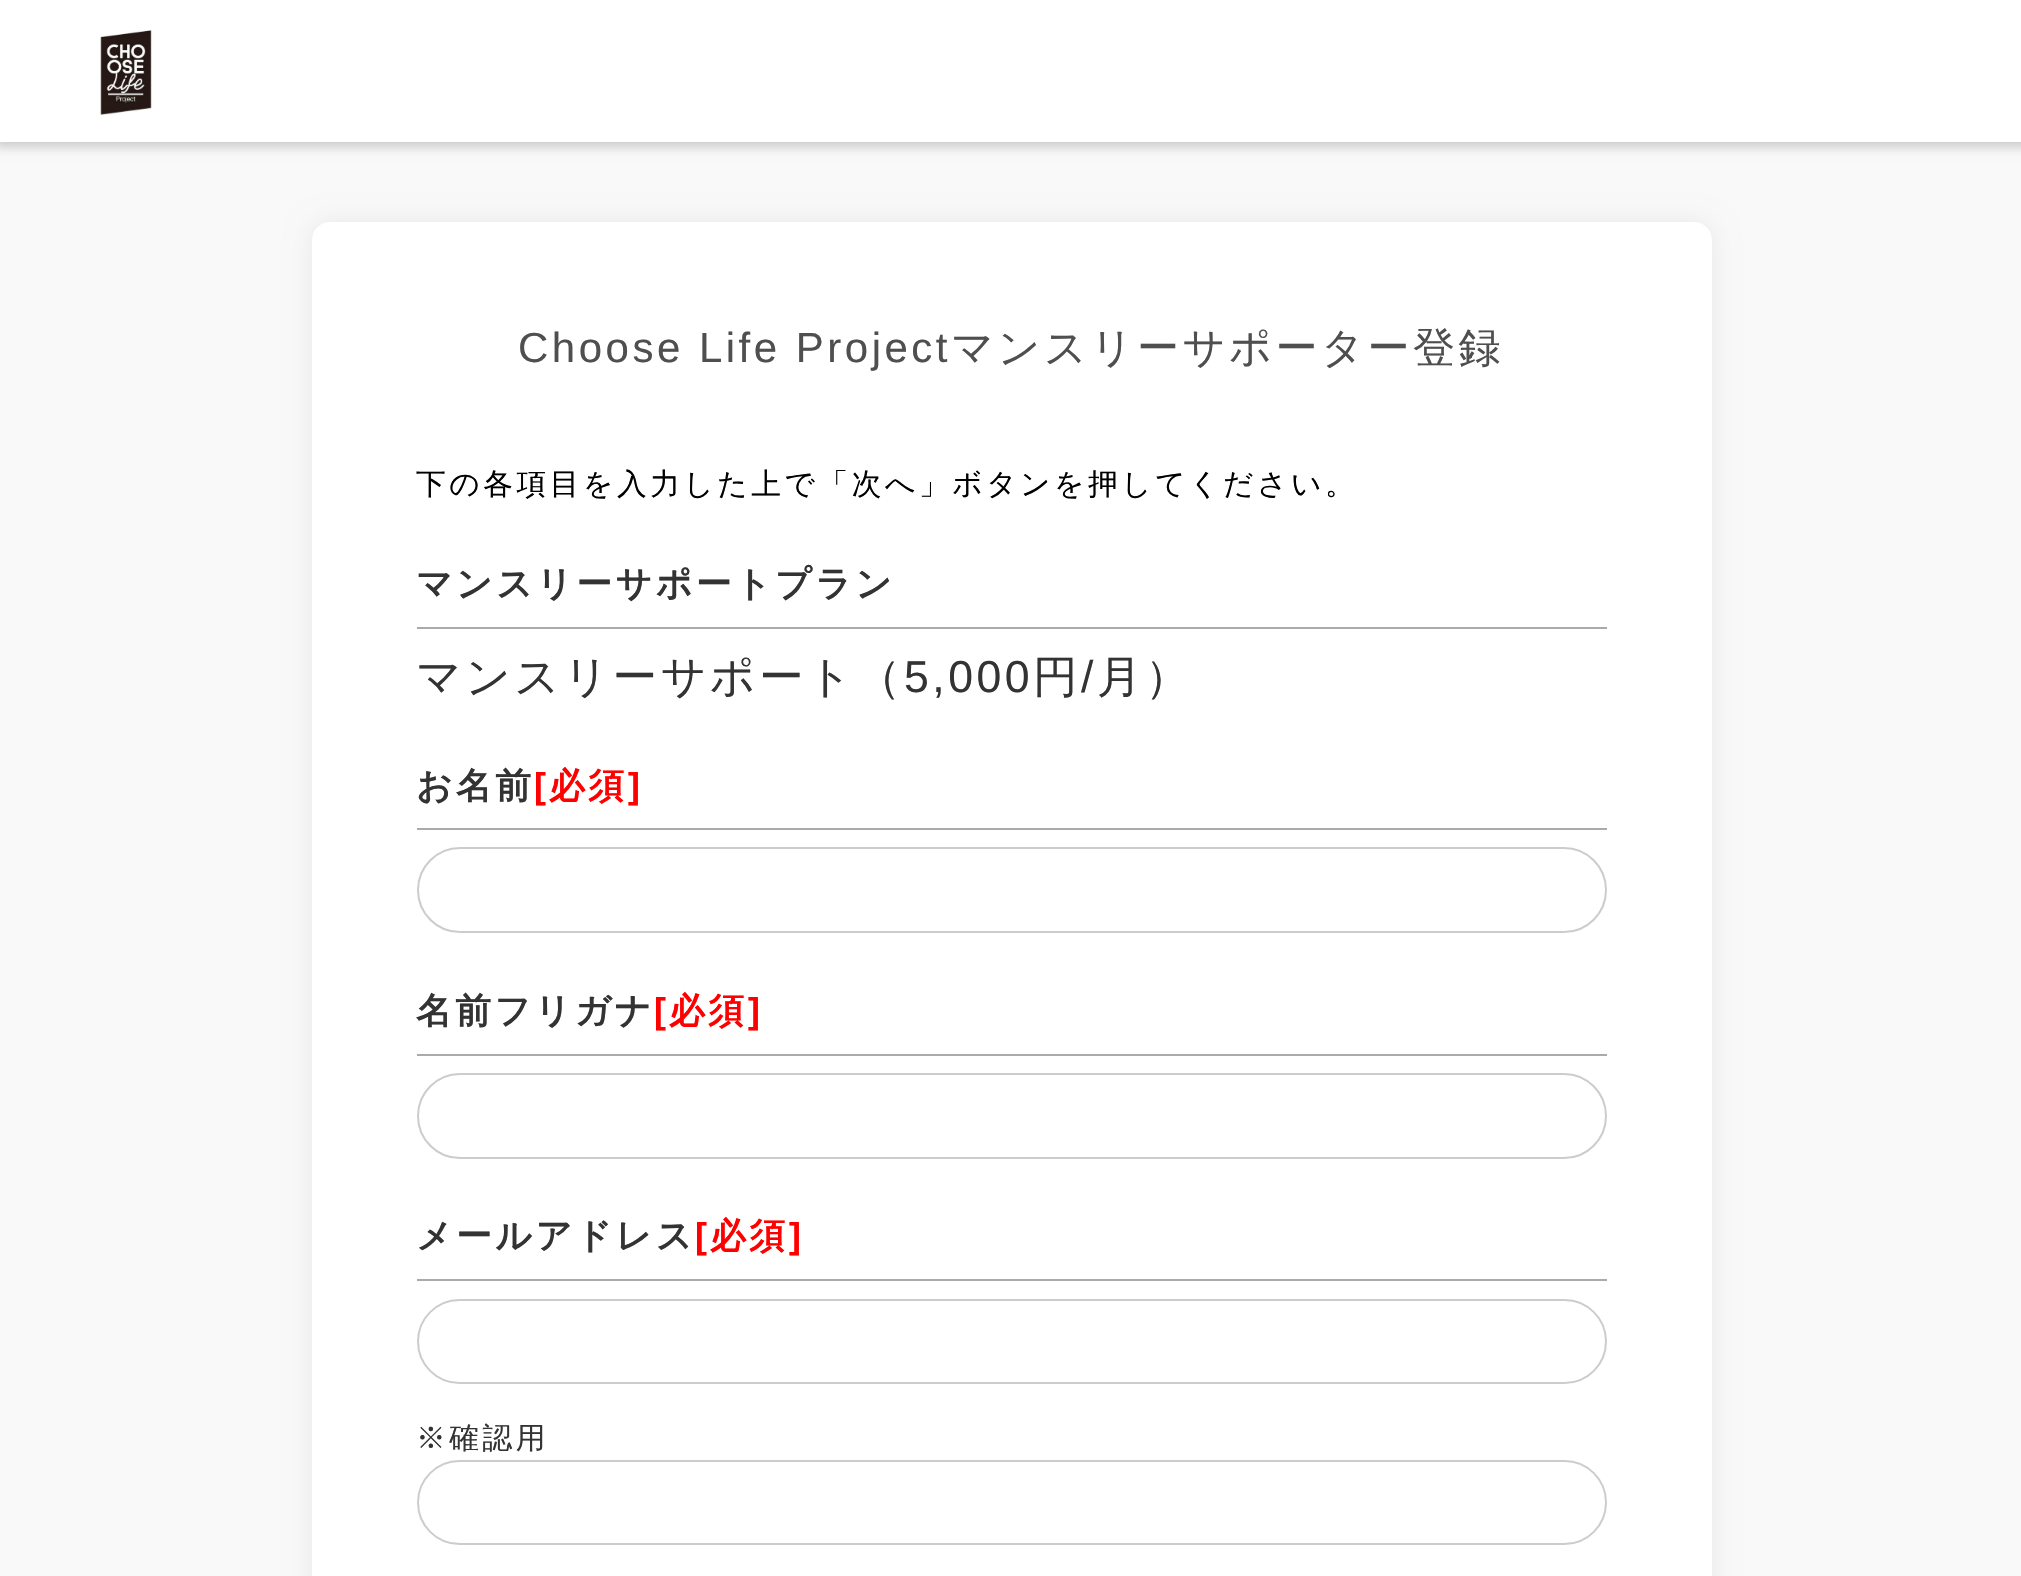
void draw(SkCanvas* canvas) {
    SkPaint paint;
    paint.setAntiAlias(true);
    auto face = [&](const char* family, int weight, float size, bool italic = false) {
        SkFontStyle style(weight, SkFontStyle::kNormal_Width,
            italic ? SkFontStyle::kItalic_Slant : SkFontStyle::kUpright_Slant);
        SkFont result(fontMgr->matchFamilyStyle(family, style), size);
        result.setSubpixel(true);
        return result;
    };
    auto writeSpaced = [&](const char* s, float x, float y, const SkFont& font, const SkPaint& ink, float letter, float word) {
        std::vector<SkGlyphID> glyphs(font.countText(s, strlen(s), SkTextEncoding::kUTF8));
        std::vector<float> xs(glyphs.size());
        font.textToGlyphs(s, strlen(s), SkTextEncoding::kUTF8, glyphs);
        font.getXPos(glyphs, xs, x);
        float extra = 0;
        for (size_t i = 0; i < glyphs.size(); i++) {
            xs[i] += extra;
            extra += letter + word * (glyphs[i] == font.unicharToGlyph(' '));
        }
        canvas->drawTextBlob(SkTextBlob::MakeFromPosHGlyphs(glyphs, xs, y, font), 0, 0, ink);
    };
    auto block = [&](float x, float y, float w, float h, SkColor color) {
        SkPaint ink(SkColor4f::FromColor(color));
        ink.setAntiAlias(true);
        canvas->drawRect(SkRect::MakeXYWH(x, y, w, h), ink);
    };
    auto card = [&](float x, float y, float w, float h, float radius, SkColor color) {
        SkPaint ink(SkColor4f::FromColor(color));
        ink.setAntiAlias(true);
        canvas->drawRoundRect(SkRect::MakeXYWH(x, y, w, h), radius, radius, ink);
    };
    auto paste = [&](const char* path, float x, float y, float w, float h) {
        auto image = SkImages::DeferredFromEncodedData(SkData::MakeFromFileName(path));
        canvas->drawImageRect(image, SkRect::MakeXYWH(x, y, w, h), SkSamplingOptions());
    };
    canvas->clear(SkColorSetRGB(249, 249, 249));
    paint.setColor(SkColorSetARGB(48, 0, 0, 0));
    paint.setMaskFilter(SkMaskFilter::MakeBlur(kNormal_SkBlurStyle, 5));
    canvas->drawRect(SkRect::MakeXYWH(-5, -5, 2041, 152), paint);
    paint.setMaskFilter(nullptr);
    block(0, 0, 2021, 142, SK_ColorWHITE);
    paste("pic1.png", 100, 30, 52, 85);
    paint.setColor(SkColorSetRGB(232, 232, 232));
    paint.setMaskFilter(SkMaskFilter::MakeBlur(kNormal_SkBlurStyle, 13));
    canvas->drawRoundRect(SkRect::MakeXYWH(312, 222, 1400, 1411), 18, 18, paint);
    paint.setMaskFilter(nullptr);
    card(312, 222, 1400, 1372, 18, SK_ColorWHITE);
    auto kFont1 = face("Liberation Sans", 400, 42);
    paint.setColor(SkColorSetRGB(79, 79, 79));
    writeSpaced("Choose Life Project", 518, 362, kFont1, paint, 3.5f, 0);
    auto kFont2 = face("WenQuanYi Zen Hei", 500, 42);
    writeSpaced("マンスリーサポーター登録", 951, 362, kFont2, paint, 3.5f, 0);
    auto kFont3 = face("WenQuanYi Zen Hei", 500, 29.75f);
    paint.setColor(SK_ColorBLACK);
    writeSpaced("下の各項目を入力した上で「次へ」ボタンを押してください。", 416, 494, kFont3, paint, 3.5f, 0);
    block(417, 627, 1190, 2, SkColorSetRGB(170, 170, 170));
    auto kFont4 = face("WenQuanYi Zen Hei", 700, 35.75f);
    paint.setColor(SkColorSetRGB(51, 51, 51));
    writeSpaced("マンスリーサポートプラン", 416, 596, kFont4, paint, 3.5f, 0);
    auto kFont5 = face("WenQuanYi Zen Hei", 500, 44.6f);
    writeSpaced("マンスリーサポート（", 416, 692, kFont5, paint, 3.5f, 0);
    auto kFont6 = face("Liberation Sans", 400, 44.6f);
    writeSpaced("5,000", 904, 692, kFont6, paint, 3.5f, 0);
    writeSpaced("円", 1033, 692, kFont5, paint, 3.5f, 0);
    writeSpaced("/", 1081, 692, kFont6, paint, 3.5f, 0);
    writeSpaced("月）", 1097, 692, kFont5, paint, 3.5f, 0);
    block(417, 828, 1190, 2, SkColorSetRGB(170, 170, 170));
    writeSpaced("お名前", 416, 798, kFont4, paint, 3.5f, 0);
    auto kFont7 = face("Liberation Sans", 700, 35.75f);
    paint.setColor(SkColorSetRGB(255, 0, 0));
    writeSpaced("[", 534, 798, kFont7, paint, 3.5f, 0);
    writeSpaced("必須", 549, 798, kFont4, paint, 3.5f, 0);
    writeSpaced("]", 628, 798, kFont7, paint, 3.5f, 0);
    paint.setStyle(SkPaint::kStroke_Style);
    paint.setStrokeWidth(2);
    paint.setColor(SkColorSetRGB(204, 204, 204));
    canvas->drawRoundRect(SkRect::MakeXYWH(418, 848, 1188, 84), 42, 42, paint);
    block(417, 1054, 1190, 2, SkColorSetRGB(170, 170, 170));
    paint.setStyle(SkPaint::kFill_Style);
    paint.setColor(SkColorSetRGB(51, 51, 51));
    writeSpaced("名前フリガナ", 416, 1023, kFont4, paint, 3.5f, 0);
    paint.setColor(SkColorSetRGB(255, 0, 0));
    writeSpaced("[", 654, 1023, kFont7, paint, 3.5f, 0);
    writeSpaced("必須", 669, 1023, kFont4, paint, 3.5f, 0);
    writeSpaced("]", 748, 1023, kFont7, paint, 3.5f, 0);
    paint.setStyle(SkPaint::kStroke_Style);
    paint.setColor(SkColorSetRGB(204, 204, 204));
    canvas->drawRoundRect(SkRect::MakeXYWH(418, 1074, 1188, 84), 42, 42, paint);
    block(417, 1279, 1190, 2, SkColorSetRGB(170, 170, 170));
    paint.setStyle(SkPaint::kFill_Style);
    paint.setColor(SkColorSetRGB(51, 51, 51));
    writeSpaced("メールアドレス", 416, 1248, kFont4, paint, 3.5f, 0);
    paint.setColor(SkColorSetRGB(255, 0, 0));
    writeSpaced("[", 695, 1248, kFont7, paint, 3.5f, 0);
    writeSpaced("必須", 710, 1248, kFont4, paint, 3.5f, 0);
    writeSpaced("]", 789, 1248, kFont7, paint, 3.5f, 0);
    paint.setStyle(SkPaint::kStroke_Style);
    paint.setColor(SkColorSetRGB(204, 204, 204));
    canvas->drawRoundRect(SkRect::MakeXYWH(418, 1300, 1188, 83), 41.5f, 41.5f, paint);
    paint.setStyle(SkPaint::kFill_Style);
    paint.setColor(SkColorSetRGB(51, 51, 51));
    writeSpaced("※確認用", 416, 1448, kFont3, paint, 3.5f, 0);
    paint.setStyle(SkPaint::kStroke_Style);
    paint.setColor(SkColorSetRGB(204, 204, 204));
    canvas->drawRoundRect(SkRect::MakeXYWH(418, 1461, 1188, 83), 41.5f, 41.5f, paint);
}
